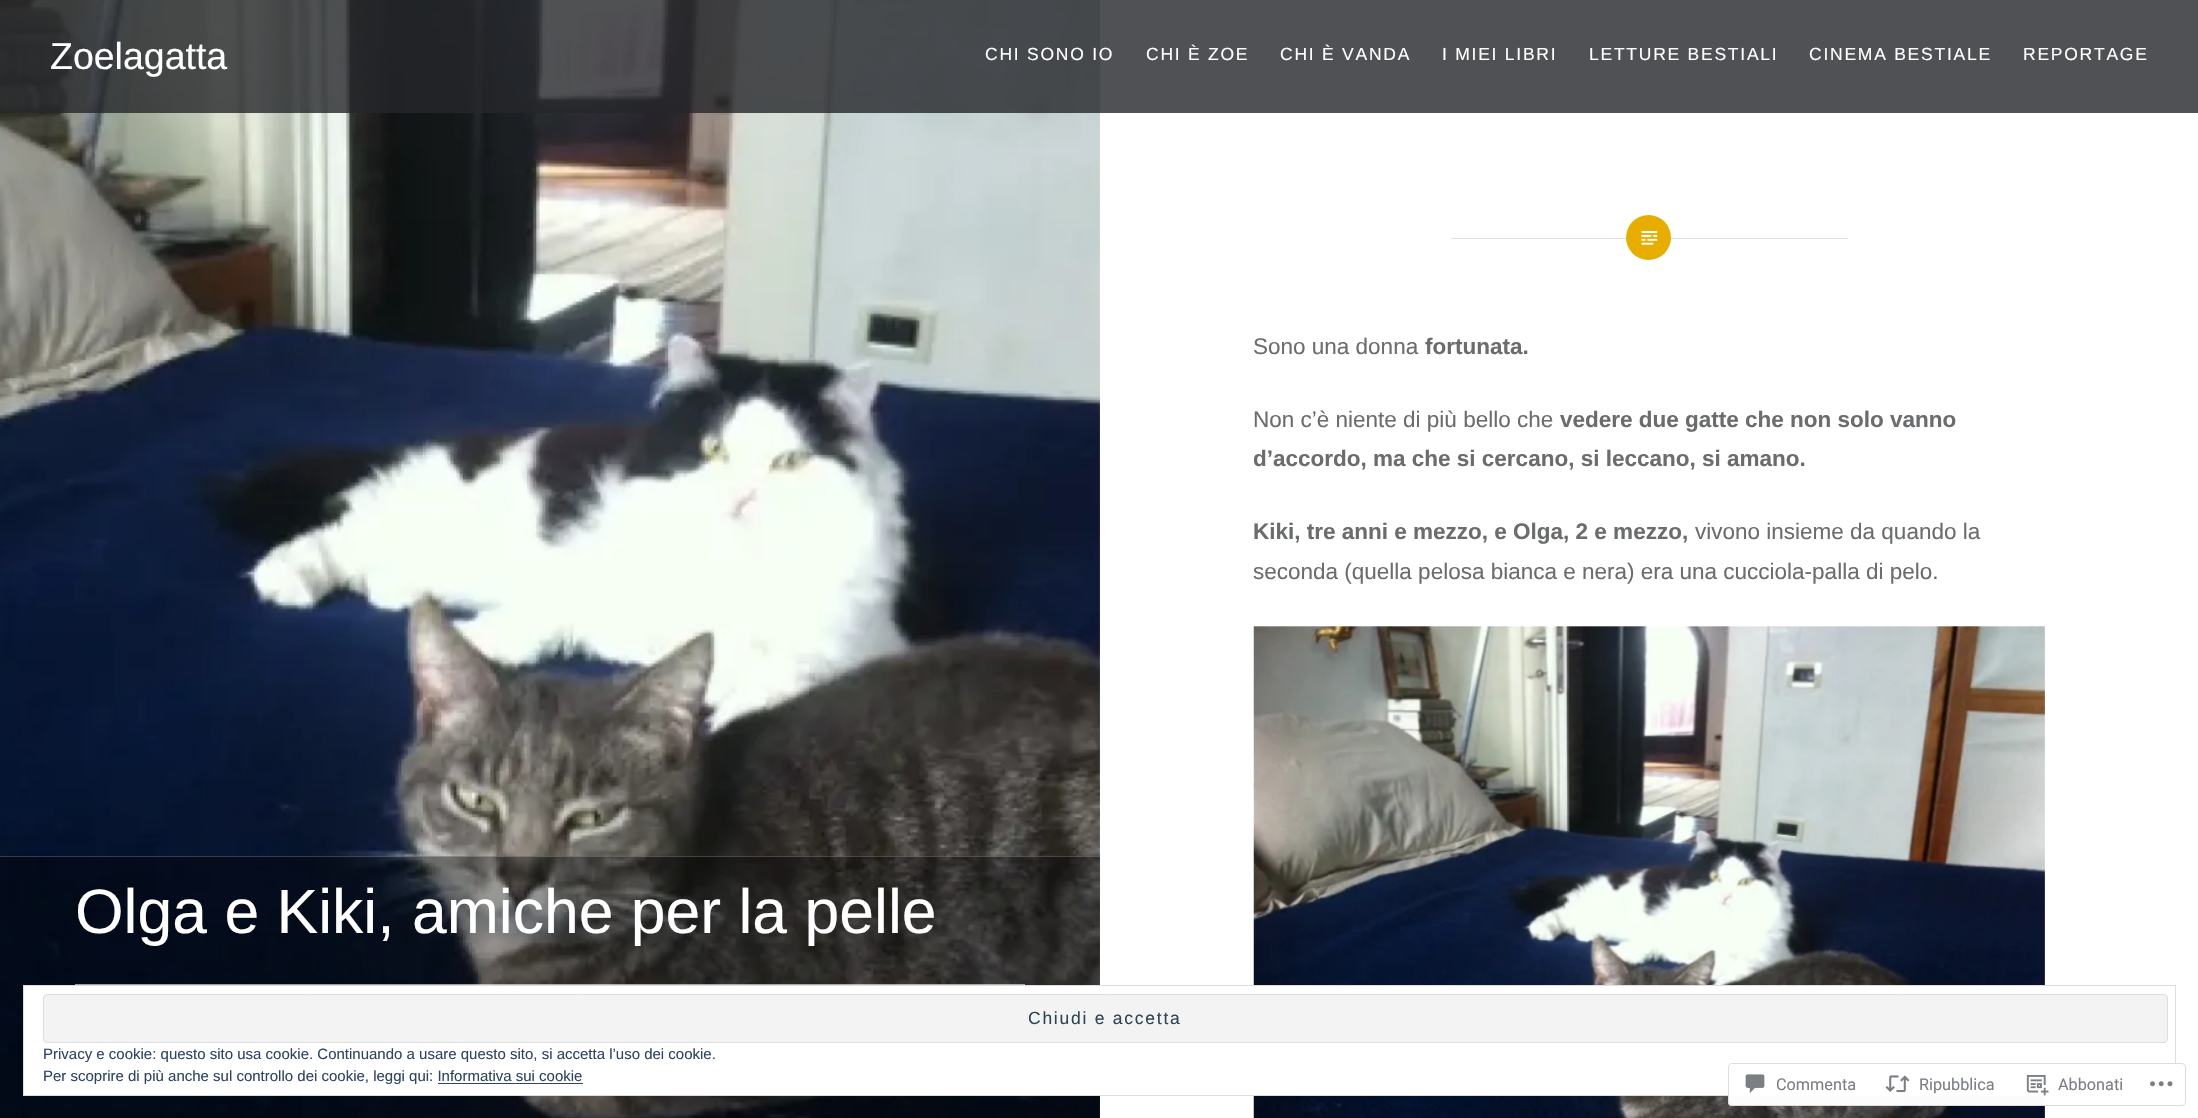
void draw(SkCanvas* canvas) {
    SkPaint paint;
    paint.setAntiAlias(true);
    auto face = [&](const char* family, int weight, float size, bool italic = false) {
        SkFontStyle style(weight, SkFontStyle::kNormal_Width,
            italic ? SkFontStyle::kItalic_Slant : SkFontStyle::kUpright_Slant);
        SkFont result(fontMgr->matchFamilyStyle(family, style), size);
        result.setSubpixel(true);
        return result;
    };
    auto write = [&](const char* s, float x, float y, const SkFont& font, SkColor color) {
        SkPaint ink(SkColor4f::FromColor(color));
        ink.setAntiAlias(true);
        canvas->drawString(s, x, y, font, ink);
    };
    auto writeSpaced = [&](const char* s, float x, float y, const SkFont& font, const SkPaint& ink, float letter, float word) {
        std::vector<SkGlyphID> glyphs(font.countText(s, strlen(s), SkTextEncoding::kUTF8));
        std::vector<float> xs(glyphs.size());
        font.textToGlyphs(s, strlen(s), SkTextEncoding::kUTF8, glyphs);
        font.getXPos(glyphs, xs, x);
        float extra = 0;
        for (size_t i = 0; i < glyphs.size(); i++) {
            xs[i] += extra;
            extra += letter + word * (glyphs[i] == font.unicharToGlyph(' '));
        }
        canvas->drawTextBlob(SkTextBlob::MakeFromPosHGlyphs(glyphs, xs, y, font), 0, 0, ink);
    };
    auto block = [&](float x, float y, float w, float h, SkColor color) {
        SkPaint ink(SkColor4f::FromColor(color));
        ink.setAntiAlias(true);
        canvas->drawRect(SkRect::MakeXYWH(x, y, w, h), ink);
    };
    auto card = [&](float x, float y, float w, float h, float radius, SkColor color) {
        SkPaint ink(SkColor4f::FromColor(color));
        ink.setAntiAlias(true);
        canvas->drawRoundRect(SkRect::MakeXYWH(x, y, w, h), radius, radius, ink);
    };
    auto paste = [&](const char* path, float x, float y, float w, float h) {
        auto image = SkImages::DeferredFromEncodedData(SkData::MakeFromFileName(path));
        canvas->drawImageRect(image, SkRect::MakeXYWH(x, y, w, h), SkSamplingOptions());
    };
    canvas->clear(SK_ColorWHITE);
    paste("pic1.png", 0, 0, 1100, 1118);
    block(0, 0, 2198, 113, SkColorSetARGB(204, 36, 38, 41));
    auto kFont1 = face("Arimo", 400, 37.5f);
    write("Zoelagatta", 50, 69, kFont1, SK_ColorWHITE);
    auto kFont2 = face("Arimo", 400, 17.5f);
    paint.setColor(SK_ColorWHITE);
    writeSpaced("CHI SONO IO", 985, 60, kFont2, paint, 1.75f, 0);
    writeSpaced("CHI È ZOE", 1146, 60, kFont2, paint, 1.75f, 0);
    writeSpaced("CHI È VANDA", 1280, 60, kFont2, paint, 1.75f, 0);
    writeSpaced("I MIEI LIBRI", 1442, 60, kFont2, paint, 1.75f, 0);
    writeSpaced("LETTURE BESTIALI", 1589, 60, kFont2, paint, 1.75f, 0);
    writeSpaced("CINEMA BESTIALE", 1809, 60, kFont2, paint, 1.75f, 0);
    writeSpaced("REPORTAGE", 2023, 60, kFont2, paint, 1.75f, 0);
    block(1451, 238, 397, 1, SkColorSetRGB(224, 224, 224));
    paint.setColor(SkColorSetRGB(231, 174, 1));
    canvas->drawCircle(1648.5f, 237.5f, 22.5f, paint);
    paste("pic2.png", 1641, 231, 17, 14);
    auto kFont3 = face("Arimo", 400, 22.5f);
    write("Sono una donna", 1253, 354, kFont3, SkColorSetRGB(106, 108, 110));
    auto kFont4 = face("Arimo", 700, 22.5f);
    write("fortunata.", 1425, 354, kFont4, SkColorSetRGB(106, 108, 110));
    write("Non c’è niente di più bello che", 1253, 427, kFont3, SkColorSetRGB(106, 108, 110));
    write("vedere due gatte che non solo vanno", 1560, 427, kFont4, SkColorSetRGB(106, 108, 110));
    write("d’accordo, ma che si cercano, si leccano, si amano.", 1253, 466, kFont4, SkColorSetRGB(106, 108, 110));
    write("Kiki, tre anni e mezzo, e Olga, 2 e mezzo,", 1253, 539, kFont4, SkColorSetRGB(106, 108, 110));
    write("vivono insieme da quando la", 1695, 539, kFont3, SkColorSetRGB(106, 108, 110));
    write("seconda (quella pelosa bianca e nera) era una cucciola-palla di pelo.", 1253, 579, kFont3, SkColorSetRGB(106, 108, 110));
    paste("pic3.png", 1253, 626, 792, 492);
    block(0, 856, 1100, 262, SkColorSetARGB(102, 0, 0, 0));
    block(0, 856, 1100, 1, SkColorSetARGB(51, 255, 255, 255));
    auto kFont5 = face("Arimo", 400, 62.5f);
    write("Olga e Kiki, amiche per la pelle", 75, 933, kFont5, SK_ColorWHITE);
    block(75, 984, 950, 1, SkColorSetARGB(153, 255, 255, 255));
    block(24, 986, 2021, 109, SK_ColorWHITE);
    paint.setStyle(SkPaint::kStroke_Style);
    paint.setStrokeWidth(1);
    paint.setColor(SkColorSetRGB(222, 222, 222));
    canvas->drawRect(SkRect::MakeXYWH(23.5f, 985.5f, 2152, 110), paint);
    paint.setStyle(SkPaint::kFill_Style);
    paint.setColor(SkColorSetRGB(243, 243, 243));
    canvas->drawRoundRect(SkRect::MakeXYWH(43.5f, 994.5f, 2124, 48), 3.5f, 3.5f, paint);
    paint.setStyle(SkPaint::kStroke_Style);
    paint.setColor(SkColorSetRGB(222, 222, 222));
    canvas->drawRoundRect(SkRect::MakeXYWH(43.5f, 994.5f, 2124, 48), 3.5f, 3.5f, paint);
    paint.setStyle(SkPaint::kFill_Style);
    paint.setColor(SkColorSetRGB(46, 68, 83));
    writeSpaced("Chiudi e accetta", 1028, 1024, kFont2, paint, 1.75f, 0);
    auto kFont6 = face("Arimo", 400, 15);
    write("Privacy e cookie: questo sito usa cookie. Continuando a usare questo sito, si accetta l’uso dei cookie.", 43, 1059, kFont6, SkColorSetRGB(46, 68, 103));
    write("Per scoprire di più anche sul controllo dei cookie, leggi qui: Informativa sui cookie", 43, 1081, kFont6, SkColorSetRGB(46, 68, 103));
    block(438, 1083, 145, 1, SkColorSetRGB(46, 68, 103));
    card(1728, 1063, 458, 43, 4, SkColorSetARGB(250, 255, 255, 255));
    paint.setStyle(SkPaint::kStroke_Style);
    paint.setColor(SkColorSetARGB(250, 220, 220, 222));
    canvas->drawRoundRect(SkRect::MakeXYWH(1728.5f, 1063.5f, 457, 42), 3.5f, 3.5f, paint);
    paste("pic4.png", 1745, 1074, 20, 19);
    auto kFont7 = face("Roboto", 400, 16.25f);
    write("Commenta", 1776, 1090, kFont7, SkColorSetRGB(123, 127, 133));
    paste("pic5.png", 1885, 1075, 25, 18);
    write("Ripubblica", 1919, 1090, kFont7, SkColorSetRGB(123, 127, 133));
    paste("pic6.png", 2026, 1075, 23, 21);
    write("Abbonati", 2058, 1090, kFont7, SkColorSetRGB(123, 127, 133));
    paste("pic7.png", 2150, 1081, 23, 6);
}
